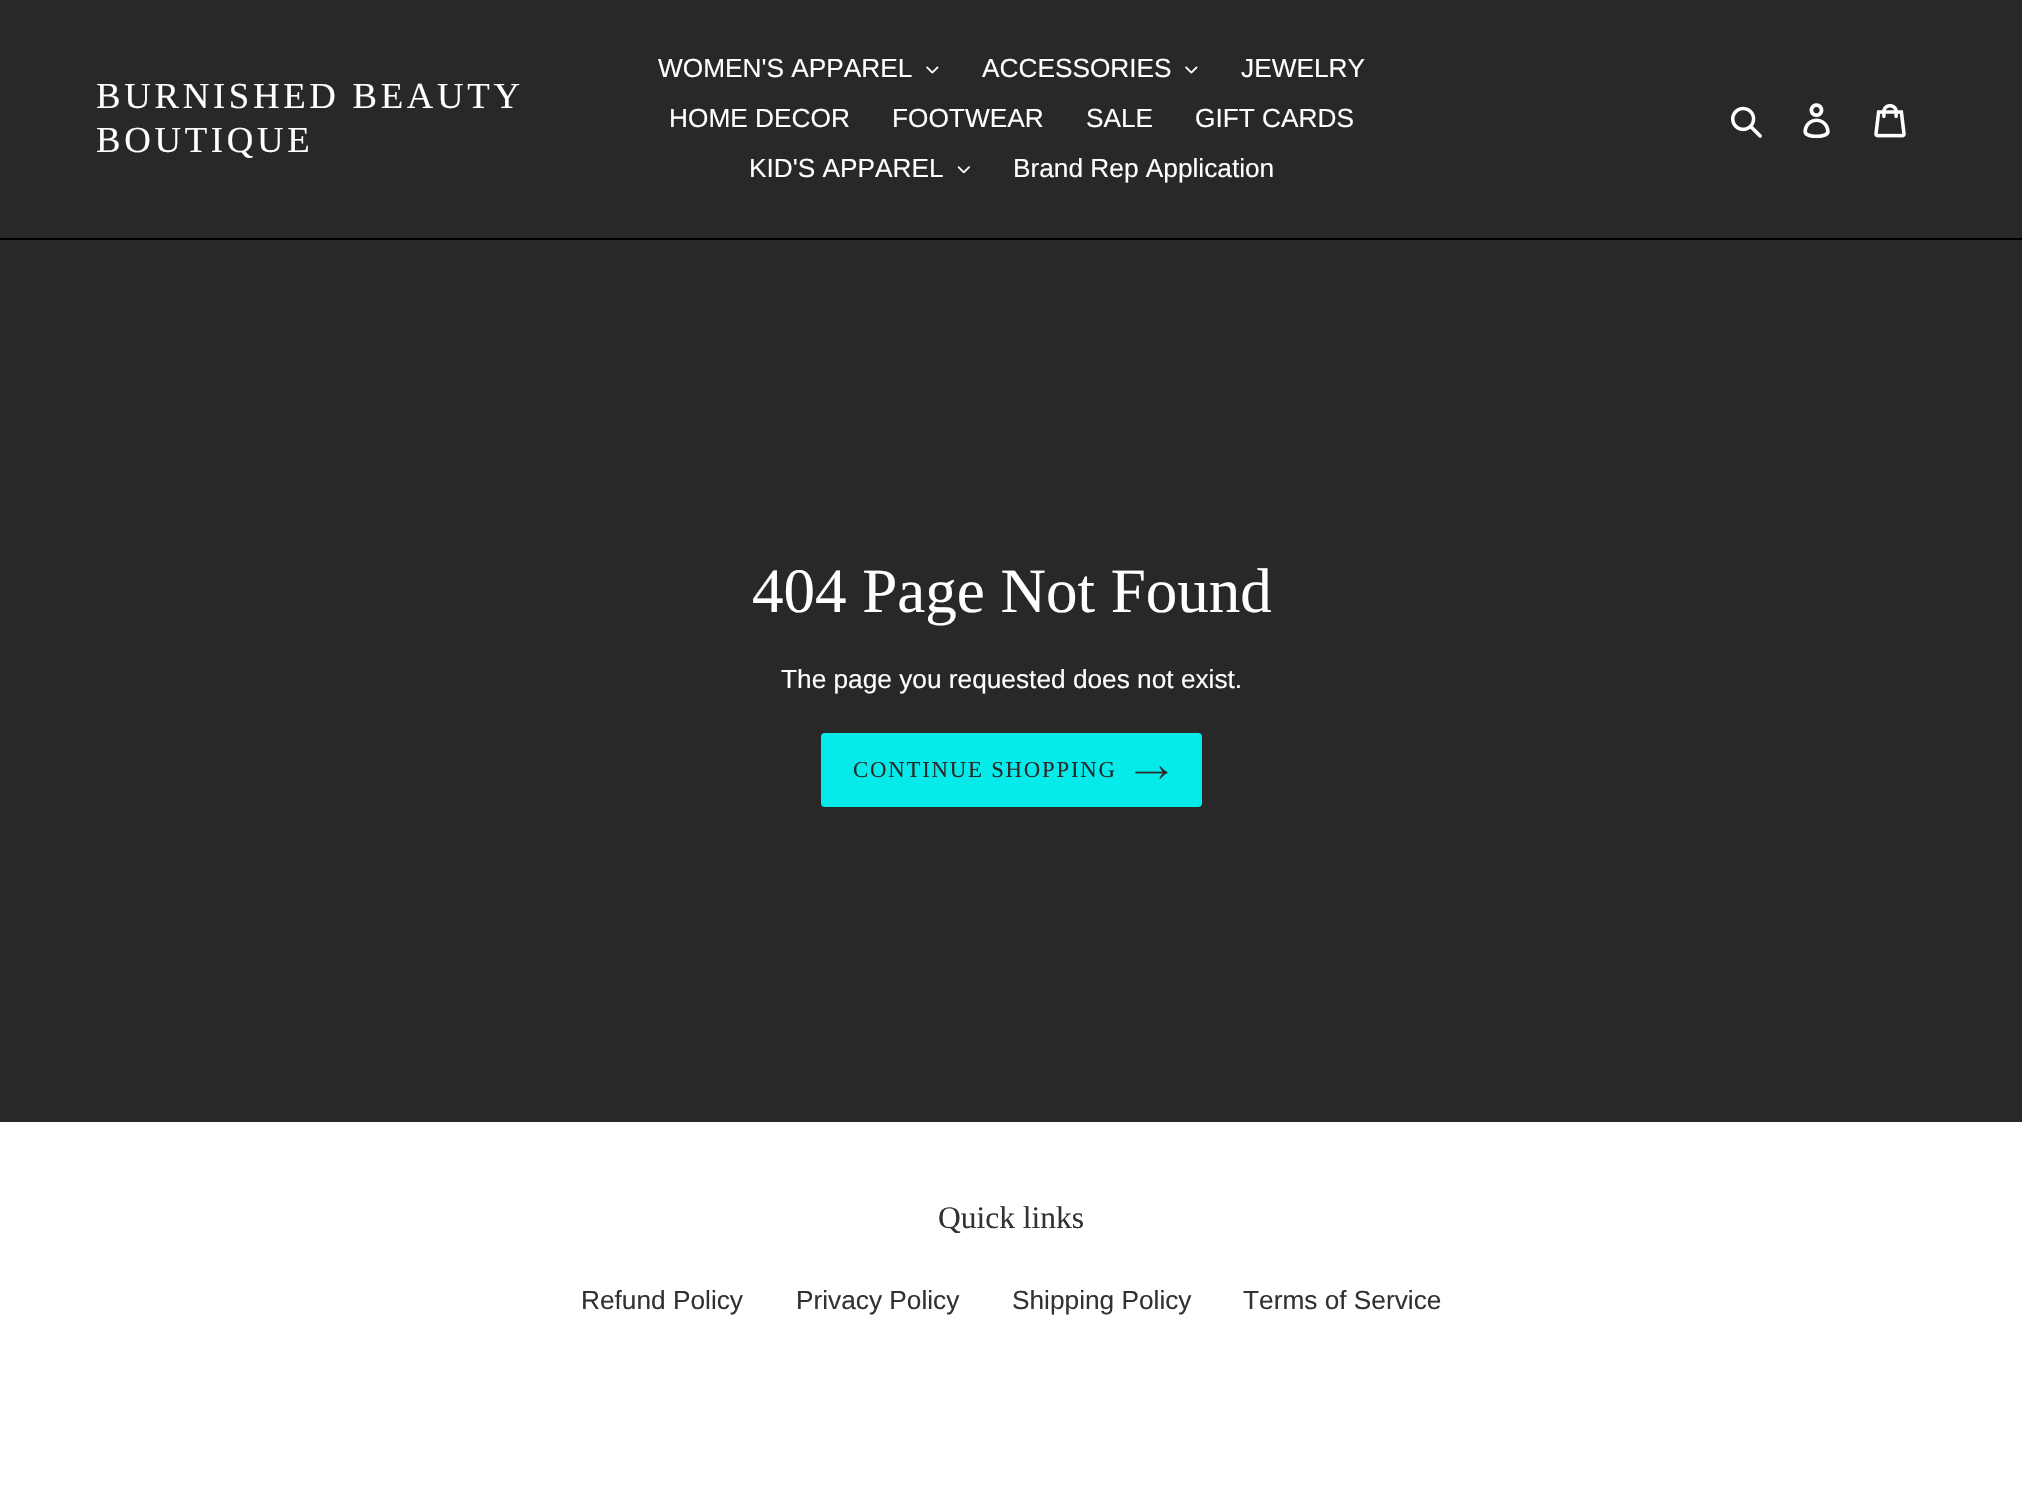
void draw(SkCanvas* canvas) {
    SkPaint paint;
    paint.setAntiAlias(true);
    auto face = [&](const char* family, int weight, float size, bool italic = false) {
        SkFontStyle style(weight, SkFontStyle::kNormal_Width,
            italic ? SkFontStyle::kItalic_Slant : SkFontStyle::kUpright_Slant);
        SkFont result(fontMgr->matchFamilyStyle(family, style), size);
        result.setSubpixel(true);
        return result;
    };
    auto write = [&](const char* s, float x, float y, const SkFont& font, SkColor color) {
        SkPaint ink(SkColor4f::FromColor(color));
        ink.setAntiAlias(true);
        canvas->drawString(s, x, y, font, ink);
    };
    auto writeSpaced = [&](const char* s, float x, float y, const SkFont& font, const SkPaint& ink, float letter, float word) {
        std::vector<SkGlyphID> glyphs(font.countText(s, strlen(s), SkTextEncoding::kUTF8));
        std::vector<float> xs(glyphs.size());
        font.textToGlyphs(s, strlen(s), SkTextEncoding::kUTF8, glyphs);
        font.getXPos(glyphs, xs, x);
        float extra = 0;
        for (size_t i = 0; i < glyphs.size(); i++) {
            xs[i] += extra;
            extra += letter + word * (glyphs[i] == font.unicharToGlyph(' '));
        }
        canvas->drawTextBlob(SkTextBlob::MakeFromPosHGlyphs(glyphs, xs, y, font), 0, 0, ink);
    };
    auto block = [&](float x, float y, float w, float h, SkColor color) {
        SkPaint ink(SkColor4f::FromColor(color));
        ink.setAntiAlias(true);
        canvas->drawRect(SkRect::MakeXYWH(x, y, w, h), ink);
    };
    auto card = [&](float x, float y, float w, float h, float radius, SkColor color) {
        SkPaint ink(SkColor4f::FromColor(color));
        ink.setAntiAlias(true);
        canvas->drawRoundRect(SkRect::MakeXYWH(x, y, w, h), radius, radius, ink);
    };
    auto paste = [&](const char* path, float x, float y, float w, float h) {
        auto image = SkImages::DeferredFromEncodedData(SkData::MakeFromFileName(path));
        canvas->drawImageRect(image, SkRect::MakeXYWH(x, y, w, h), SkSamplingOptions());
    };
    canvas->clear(SkColorSetRGB(41, 40, 40));
    block(0, 238, 2022, 2, SK_ColorBLACK);
    auto kFont1 = face("Liberation Serif", 400, 36.75f);
    paint.setColor(SK_ColorWHITE);
    writeSpaced("BURNISHED BEAUTY", 96, 108, kFont1, paint, 3.7f, 0);
    writeSpaced("BOUTIQUE", 96, 152, kFont1, paint, 3.7f, 0);
    auto kFont2 = face("Liberation Sans", 400, 26.25f);
    write("WOMEN'S APPAREL", 658, 77, kFont2, SK_ColorWHITE);
    paste("pic1.png", 926, 66, 13, 8);
    write("ACCESSORIES", 982, 77, kFont2, SK_ColorWHITE);
    paste("pic1.png", 1185, 66, 13, 8);
    write("JEWELRY", 1241, 77, kFont2, SK_ColorWHITE);
    write("HOME DECOR", 669, 127, kFont2, SK_ColorWHITE);
    write("FOOTWEAR", 892, 127, kFont2, SK_ColorWHITE);
    write("SALE", 1086, 127, kFont2, SK_ColorWHITE);
    write("GIFT CARDS", 1195, 127, kFont2, SK_ColorWHITE);
    write("KID'S APPAREL", 749, 177, kFont2, SK_ColorWHITE);
    paste("pic2.png", 957, 166, 13, 8);
    write("Brand Rep Application", 1013, 177, kFont2, SK_ColorWHITE);
    paste("pic3.png", 1731, 106, 31, 32);
    paste("pic4.png", 1803, 103, 27, 35);
    paste("pic5.png", 1874, 104, 32, 34);
    auto kFont3 = face("Liberation Serif", 400, 63);
    write("404 Page Not Found", 752, 612, kFont3, SK_ColorWHITE);
    write("The page you requested does not exist.", 781, 688, kFont2, SK_ColorWHITE);
    card(821, 733, 381, 74, 4, SkColorSetRGB(6, 234, 234));
    auto kFont4 = face("Liberation Serif", 400, 22.75f);
    paint.setColor(SkColorSetRGB(43, 41, 41));
    writeSpaced("CONTINUE SHOPPING", 853, 777, kFont4, paint, 1.8f, 0);
    paste("pic6.png", 1135, 766, 33, 13);
    block(0, 1122, 2022, 366, SK_ColorWHITE);
    auto kFont5 = face("Liberation Serif", 400, 31.5f);
    write("Quick links", 938, 1228, kFont5, SkColorSetRGB(51, 50, 50));
    write("Refund Policy", 581, 1309, kFont2, SkColorSetRGB(51, 50, 50));
    write("Privacy Policy", 796, 1309, kFont2, SkColorSetRGB(51, 50, 50));
    write("Shipping Policy", 1012, 1309, kFont2, SkColorSetRGB(51, 50, 50));
    write("Terms of Service", 1243, 1309, kFont2, SkColorSetRGB(51, 50, 50));
}
